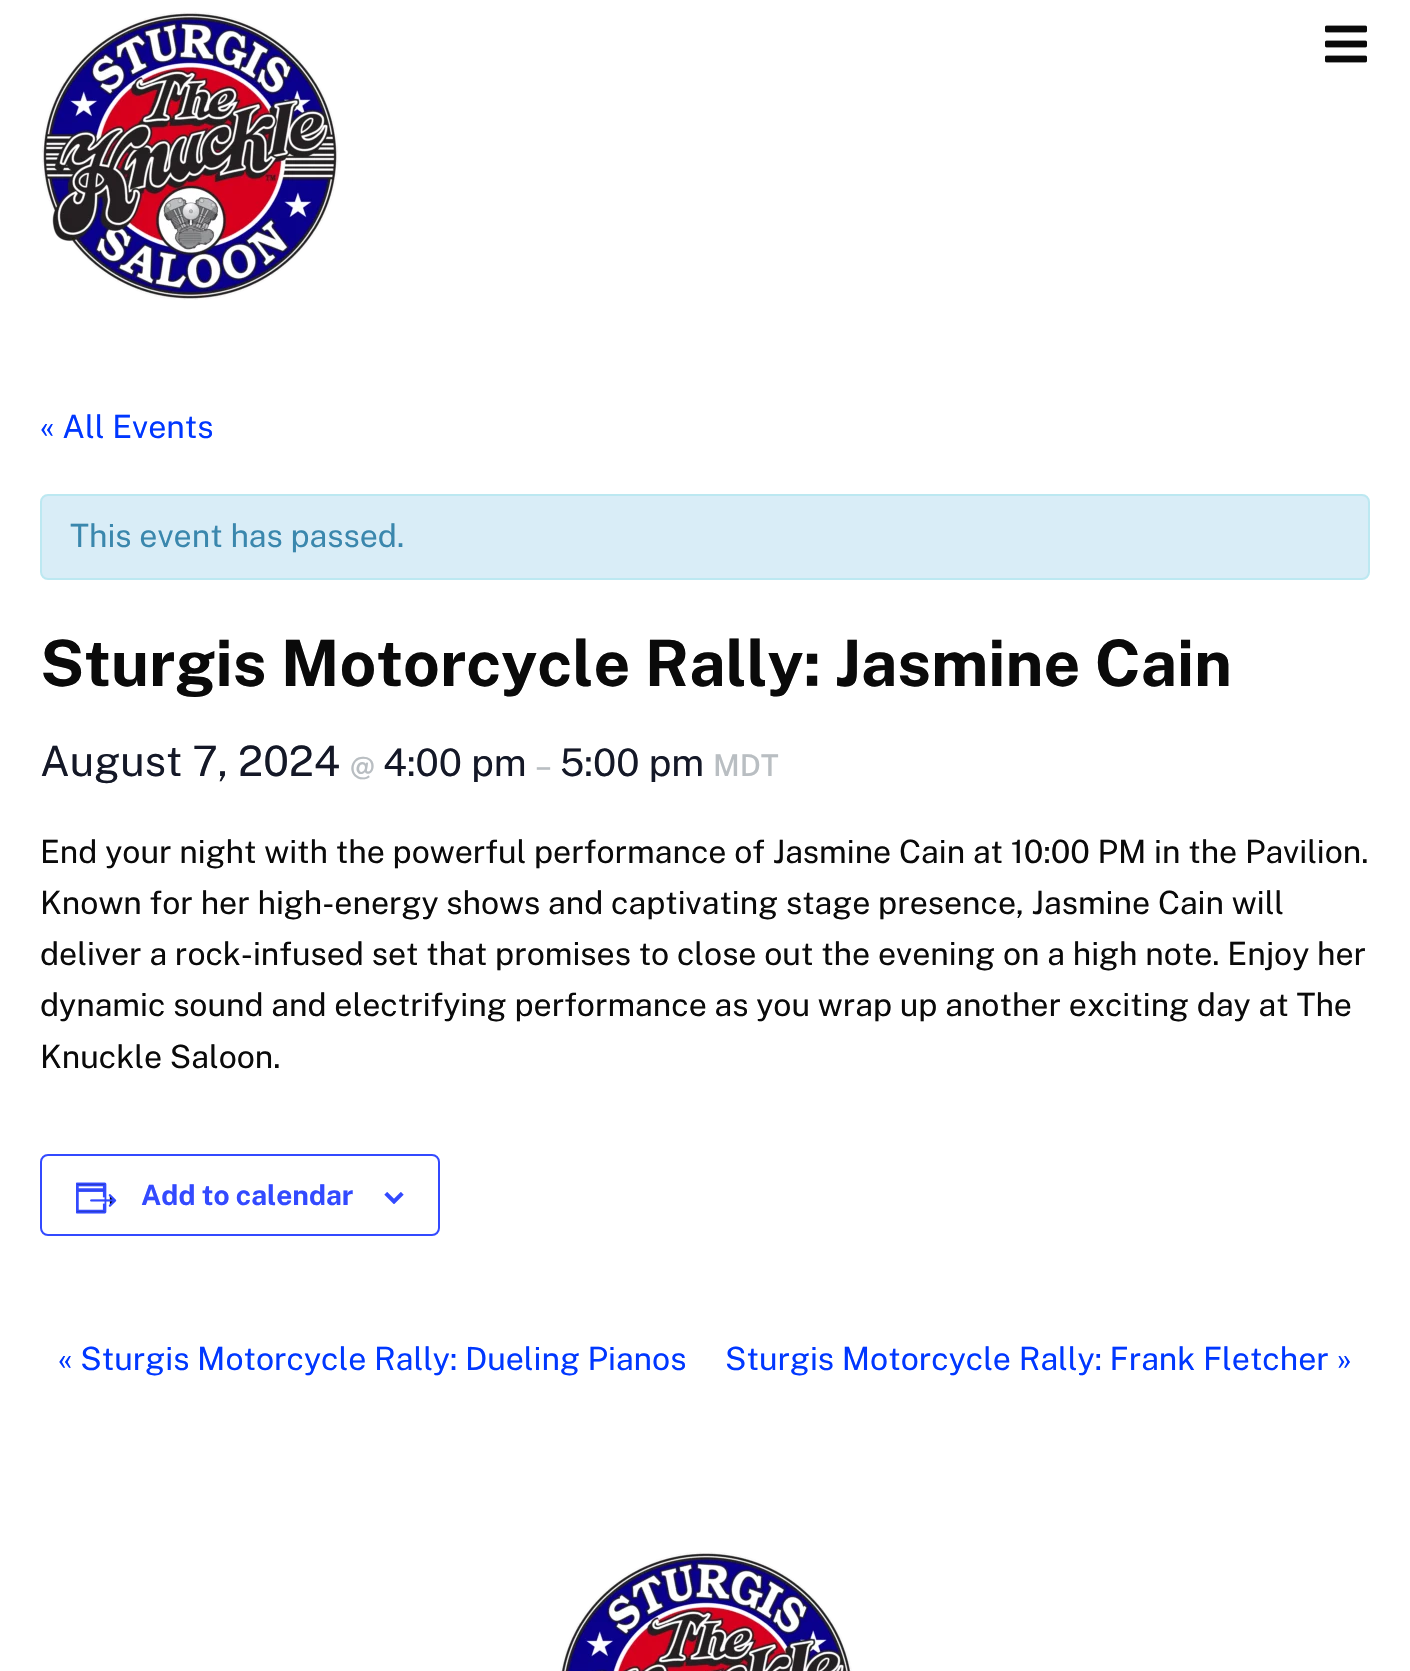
void draw(SkCanvas* canvas) {
    SkPaint paint;
    paint.setAntiAlias(true);
    auto face = [&](const char* family, int weight, float size, bool italic = false) {
        SkFontStyle style(weight, SkFontStyle::kNormal_Width,
            italic ? SkFontStyle::kItalic_Slant : SkFontStyle::kUpright_Slant);
        SkFont result(fontMgr->matchFamilyStyle(family, style), size);
        result.setSubpixel(true);
        return result;
    };
    auto write = [&](const char* s, float x, float y, const SkFont& font, SkColor color) {
        SkPaint ink(SkColor4f::FromColor(color));
        ink.setAntiAlias(true);
        canvas->drawString(s, x, y, font, ink);
    };
    auto paste = [&](const char* path, float x, float y, float w, float h) {
        auto image = SkImages::DeferredFromEncodedData(SkData::MakeFromFileName(path));
        canvas->drawImageRect(image, SkRect::MakeXYWH(x, y, w, h), SkSamplingOptions());
    };
    canvas->clear(SK_ColorWHITE);
    paste("pic1.png", 42, 12, 296, 288);
    paste("pic2.png", 1325, 25, 42, 38);
    auto kFont1 = face("Public Sans", 400, 32, true);
    write("« All Events", 40, 438, kFont1, SkColorSetRGB(0, 55, 255));
    paint.setColor(SkColorSetRGB(217, 237, 247));
    canvas->drawRoundRect(SkRect::MakeXYWH(41, 495, 1328, 84), 7, 7, paint);
    paint.setStyle(SkPaint::kStroke_Style);
    paint.setStrokeWidth(2);
    paint.setColor(SkColorSetRGB(188, 232, 241));
    canvas->drawRoundRect(SkRect::MakeXYWH(41, 495, 1328, 84), 7, 7, paint);
    write("This event has passed.", 70, 547, kFont1, SkColorSetRGB(58, 135, 173));
    auto kFont2 = face("Public Sans", 700, 64, true);
    write("Sturgis Motorcycle Rally: Jasmine Cain", 40, 686, kFont2, SkColorSetRGB(10, 10, 10));
    auto kFont3 = face("Public Sans", 400, 42, true);
    write("August 7, 2024", 40, 776, kFont3, SkColorSetRGB(20, 24, 39));
    auto kFont4 = face("Public Sans", 500, 30, true);
    write("@", 350, 776, kFont4, SkColorSetRGB(185, 190, 194));
    auto kFont5 = face("Public Sans", 400, 38, true);
    write("4:00 pm", 383, 776, kFont5, SkColorSetRGB(20, 24, 39));
    write("–", 535, 776, kFont4, SkColorSetRGB(185, 190, 194));
    write("5:00 pm", 560, 776, kFont5, SkColorSetRGB(20, 24, 39));
    write("MDT", 713, 776, kFont4, SkColorSetRGB(185, 190, 194));
    write("End your night with the powerful performance of Jasmine Cain at 10:00 PM in the Pavilion.", 40, 863, kFont1, SkColorSetRGB(10, 10, 10));
    write("Known for her high-energy shows and captivating stage presence, Jasmine Cain will", 40, 914, kFont1, SkColorSetRGB(10, 10, 10));
    write("deliver a rock-infused set that promises to close out the evening on a high note. Enjoy her", 40, 965, kFont1, SkColorSetRGB(10, 10, 10));
    write("dynamic sound and electrifying performance as you wrap up another exciting day at The", 40, 1016, kFont1, SkColorSetRGB(10, 10, 10));
    write("Knuckle Saloon.", 40, 1068, kFont1, SkColorSetRGB(10, 10, 10));
    paint.setColor(SkColorSetRGB(51, 74, 255));
    canvas->drawRoundRect(SkRect::MakeXYWH(41, 1155, 398, 80), 7, 7, paint);
    paste("pic3.png", 76, 1182, 41, 32);
    auto kFont6 = face("Public Sans", 700, 28, true);
    write("Add to calendar", 141, 1205, kFont6, SkColorSetRGB(51, 74, 255));
    paste("pic4.png", 384, 1192, 20, 12);
    write("« Sturgis Motorcycle Rally: Dueling Pianos", 58, 1370, kFont1, SkColorSetRGB(0, 55, 255));
    write("Sturgis Motorcycle Rally: Frank Fletcher »", 725, 1370, kFont1, SkColorSetRGB(0, 55, 255));
    paste("pic5.png", 560, 1552, 292, 119);
}
